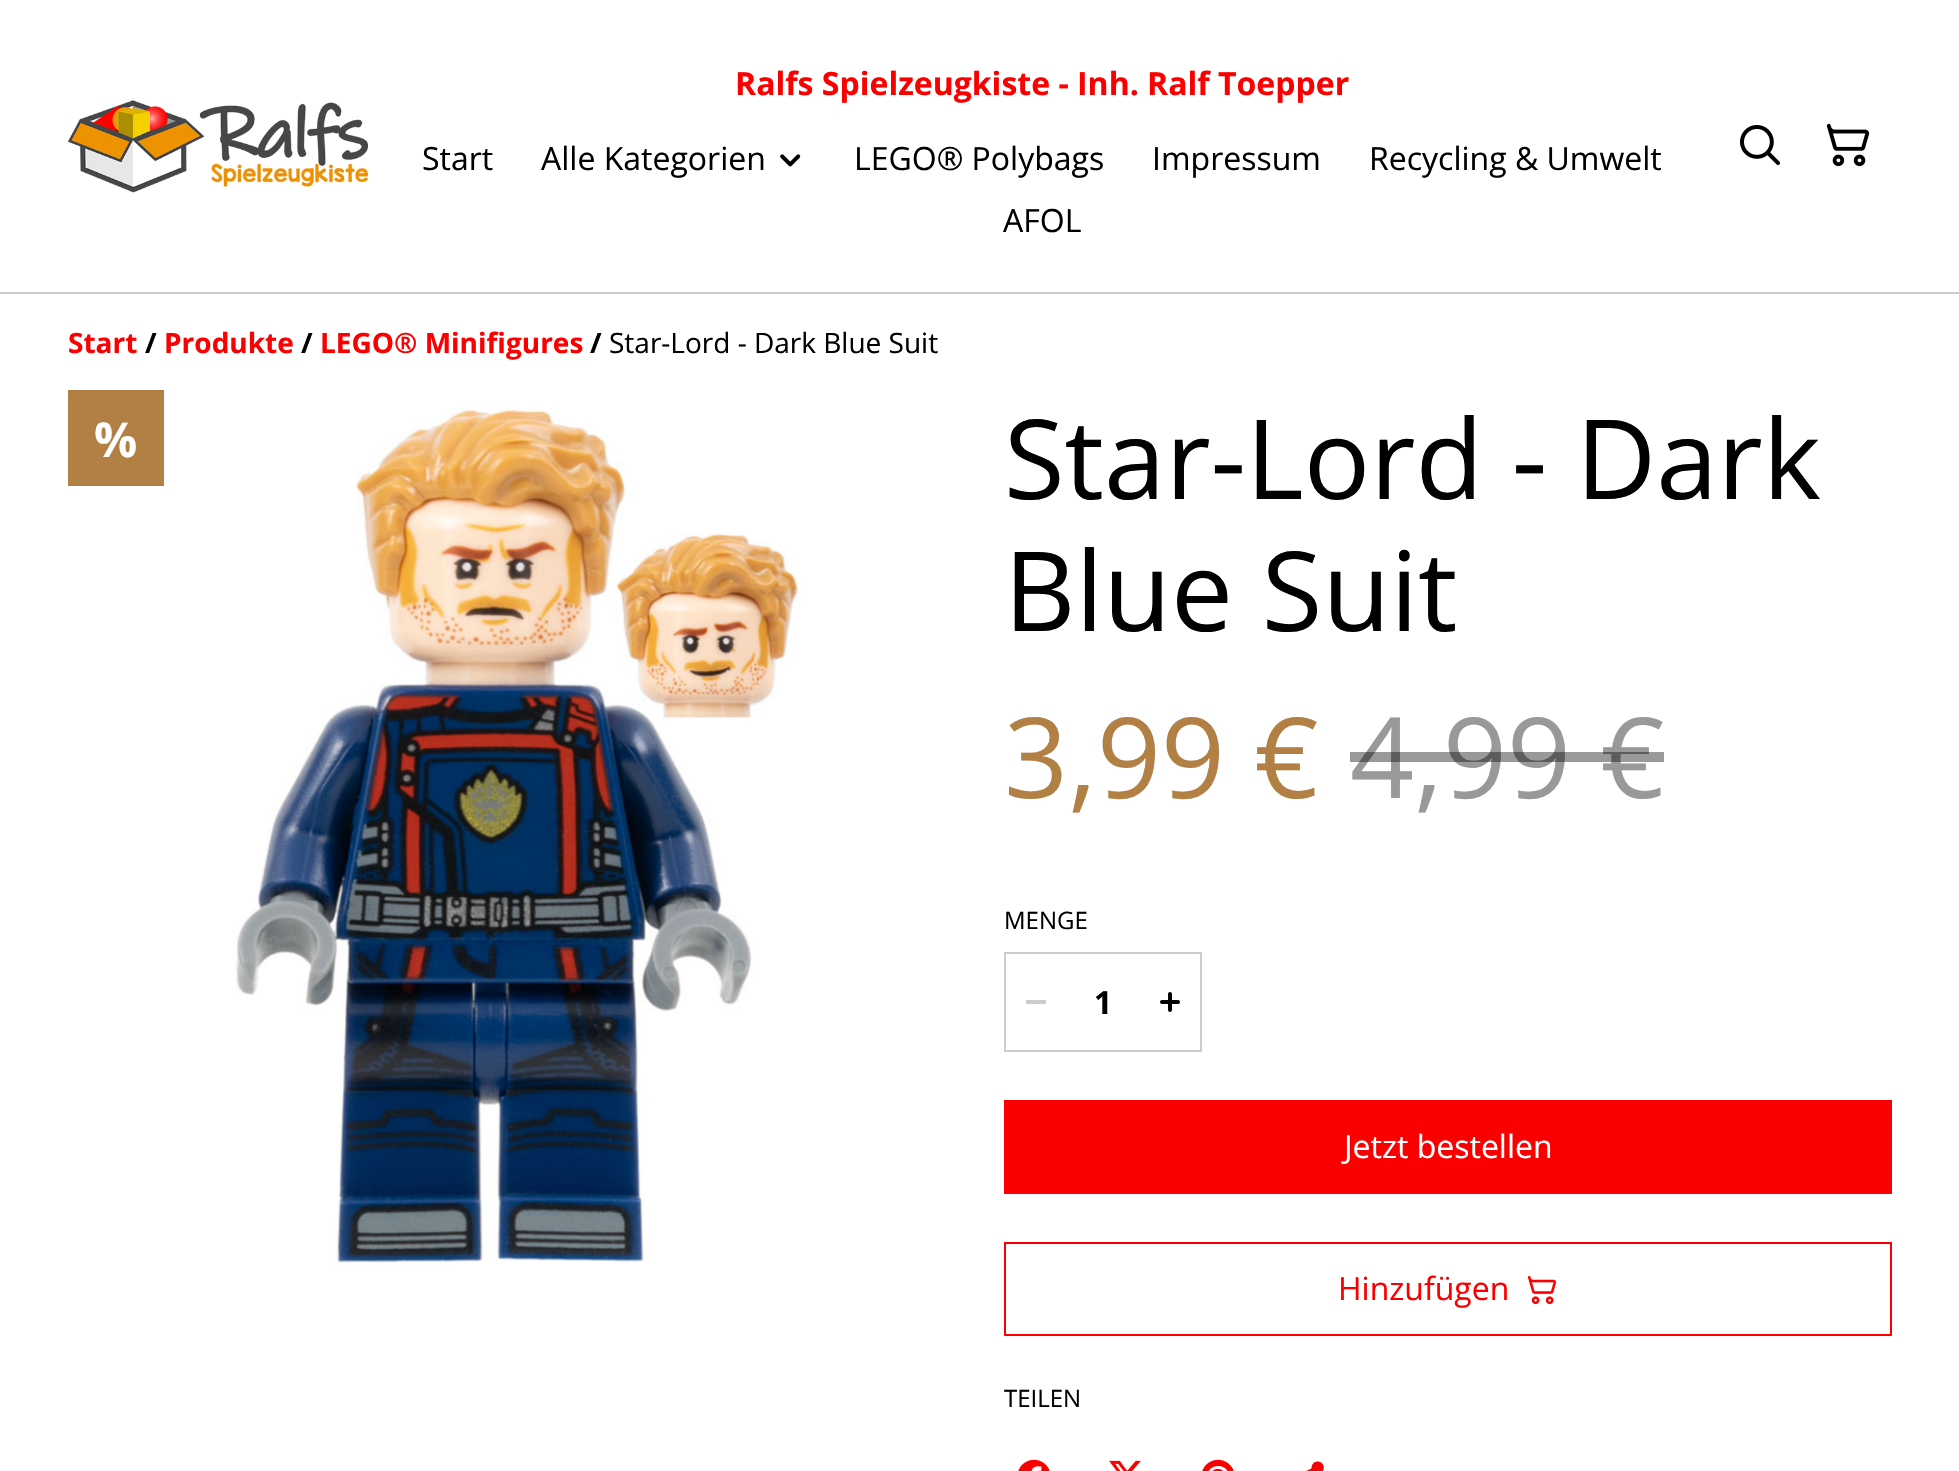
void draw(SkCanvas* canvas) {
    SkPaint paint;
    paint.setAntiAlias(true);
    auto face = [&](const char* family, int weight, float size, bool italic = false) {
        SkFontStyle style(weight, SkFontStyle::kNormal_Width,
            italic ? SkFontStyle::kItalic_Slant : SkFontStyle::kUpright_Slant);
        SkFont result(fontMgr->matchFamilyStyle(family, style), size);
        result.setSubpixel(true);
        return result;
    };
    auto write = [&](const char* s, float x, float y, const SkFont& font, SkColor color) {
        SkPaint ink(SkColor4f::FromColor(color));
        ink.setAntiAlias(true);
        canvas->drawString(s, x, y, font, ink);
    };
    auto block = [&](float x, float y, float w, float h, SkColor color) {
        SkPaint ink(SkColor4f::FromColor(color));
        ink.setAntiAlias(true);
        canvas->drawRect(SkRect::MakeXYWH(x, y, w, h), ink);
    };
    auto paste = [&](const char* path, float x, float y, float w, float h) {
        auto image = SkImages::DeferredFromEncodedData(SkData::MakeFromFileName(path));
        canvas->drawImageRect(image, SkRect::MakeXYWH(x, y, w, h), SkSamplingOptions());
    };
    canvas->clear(SK_ColorWHITE);
    block(0, 292, 1959, 2, SkColorSetRGB(204, 204, 204));
    paste("pic1.png", 68, 100, 300, 93);
    auto kFont1 = face("Open Sans", 700, 32);
    write("Ralfs Spielzeugkiste - Inh. Ralf Toepper", 735, 95, kFont1, SkColorSetRGB(251, 0, 0));
    auto kFont2 = face("Open Sans", 400, 32);
    write("Start", 422, 170, kFont2, SK_ColorBLACK);
    write("Alle Kategorien", 541, 170, kFont2, SK_ColorBLACK);
    paste("pic2.png", 780, 154, 21, 13);
    write("LEGO® Polybags", 854, 170, kFont2, SK_ColorBLACK);
    write("Impressum", 1152, 170, kFont2, SK_ColorBLACK);
    write("Recycling & Umwelt", 1369, 170, kFont2, SK_ColorBLACK);
    write("AFOL", 1003, 232, kFont2, SK_ColorBLACK);
    paste("pic3.png", 1740, 125, 40, 40);
    paste("pic4.png", 1826, 123, 44, 44);
    auto kFont3 = face("Open Sans", 700, 28);
    write("Start", 68, 353, kFont3, SkColorSetRGB(251, 0, 0));
    write("/", 145, 353, kFont3, SK_ColorBLACK);
    write("Produkte", 164, 353, kFont3, SkColorSetRGB(251, 0, 0));
    write("/", 301, 353, kFont3, SK_ColorBLACK);
    write("LEGO® Minifigures", 320, 353, kFont3, SkColorSetRGB(251, 0, 0));
    write("/", 590, 353, kFont3, SK_ColorBLACK);
    auto kFont4 = face("Open Sans", 400, 28);
    write("Star-Lord - Dark Blue Suit", 609, 353, kFont4, SK_ColorBLACK);
    block(68, 390, 96, 96, SkColorSetRGB(178, 128, 69));
    auto kFont5 = face("Open Sans", 700, 48);
    write("%", 94, 457, kFont5, SK_ColorWHITE);
    paste("pic5.png", 235, 408, 567, 861);
    auto kFont6 = face("Open Sans", 400, 110.5f);
    write("Star-Lord - Dark", 1004, 499, kFont6, SK_ColorBLACK);
    write("Blue Suit", 1004, 631, kFont6, SK_ColorBLACK);
    auto kFont7 = face("Open Sans", 400, 112);
    write("3,99 €", 1004, 798, kFont7, SkColorSetRGB(178, 128, 69));
    write("4,99 €", 1350, 798, kFont7, SkColorSetRGB(153, 153, 153));
    block(1350, 752, 314, 10, SkColorSetARGB(102, 0, 0, 0));
    auto kFont8 = face("Open Sans", 400, 24);
    write("MENGE", 1004, 929, kFont8, SK_ColorBLACK);
    paint.setColor(SkColorSetRGB(204, 204, 204));
    canvas->drawPath(SkPathBuilder().moveTo(1004, 952).lineTo(1068, 952).lineTo(1068, 954).lineTo(1006, 954).close().detach(), paint);
    canvas->drawPath(SkPathBuilder().moveTo(1068, 1052).lineTo(1004, 1052).lineTo(1006, 1050).lineTo(1068, 1050).close().detach(), paint);
    paint.setColor(SkColorSetARGB(51, 0, 0, 0));
    canvas->drawPath(SkPathBuilder().moveTo(1004, 1052).lineTo(1004, 952).lineTo(1006, 954).lineTo(1006, 1050).close().detach(), paint);
    block(1026, 1000, 20, 4, SkColorSetRGB(204, 204, 204));
    block(1068, 952, 70, 2, SkColorSetRGB(204, 204, 204));
    block(1068, 1050, 70, 2, SkColorSetRGB(204, 204, 204));
    write("1", 1094, 1014, kFont1, SK_ColorBLACK);
    paint.setColor(SkColorSetRGB(204, 204, 204));
    canvas->drawPath(SkPathBuilder().moveTo(1138, 952).lineTo(1202, 952).lineTo(1200, 954).lineTo(1138, 954).close().detach(), paint);
    paint.setColor(SkColorSetARGB(51, 0, 0, 0));
    canvas->drawPath(SkPathBuilder().moveTo(1202, 952).lineTo(1202, 1052).lineTo(1200, 1050).lineTo(1200, 954).close().detach(), paint);
    canvas->drawPath(SkPathBuilder().moveTo(1202, 1052).lineTo(1138, 1052).lineTo(1138, 1050).lineTo(1200, 1050).close().detach(), paint);
    paste("pic6.png", 1160, 992, 20, 20);
    block(1004, 1100, 888, 94, SkColorSetRGB(251, 0, 0));
    write("Jetzt bestellen", 1344, 1158, kFont2, SK_ColorWHITE);
    paint.setStyle(SkPaint::kStroke_Style);
    paint.setStrokeWidth(2);
    paint.setColor(SkColorSetRGB(251, 0, 0));
    canvas->drawRect(SkRect::MakeXYWH(1005, 1243, 886, 92), paint);
    write("Hinzufügen", 1338, 1300, kFont2, SkColorSetRGB(251, 0, 0));
    paste("pic7.png", 1527, 1275, 30, 30);
    write("TEILEN", 1004, 1407, kFont8, SK_ColorBLACK);
    paste("pic8.png", 1018, 1459, 32, 12);
    paste("pic9.png", 1109, 1460, 32, 11);
    paste("pic10.png", 1202, 1459, 32, 12);
    paste("pic11.png", 1306, 1461, 18, 10);
}
